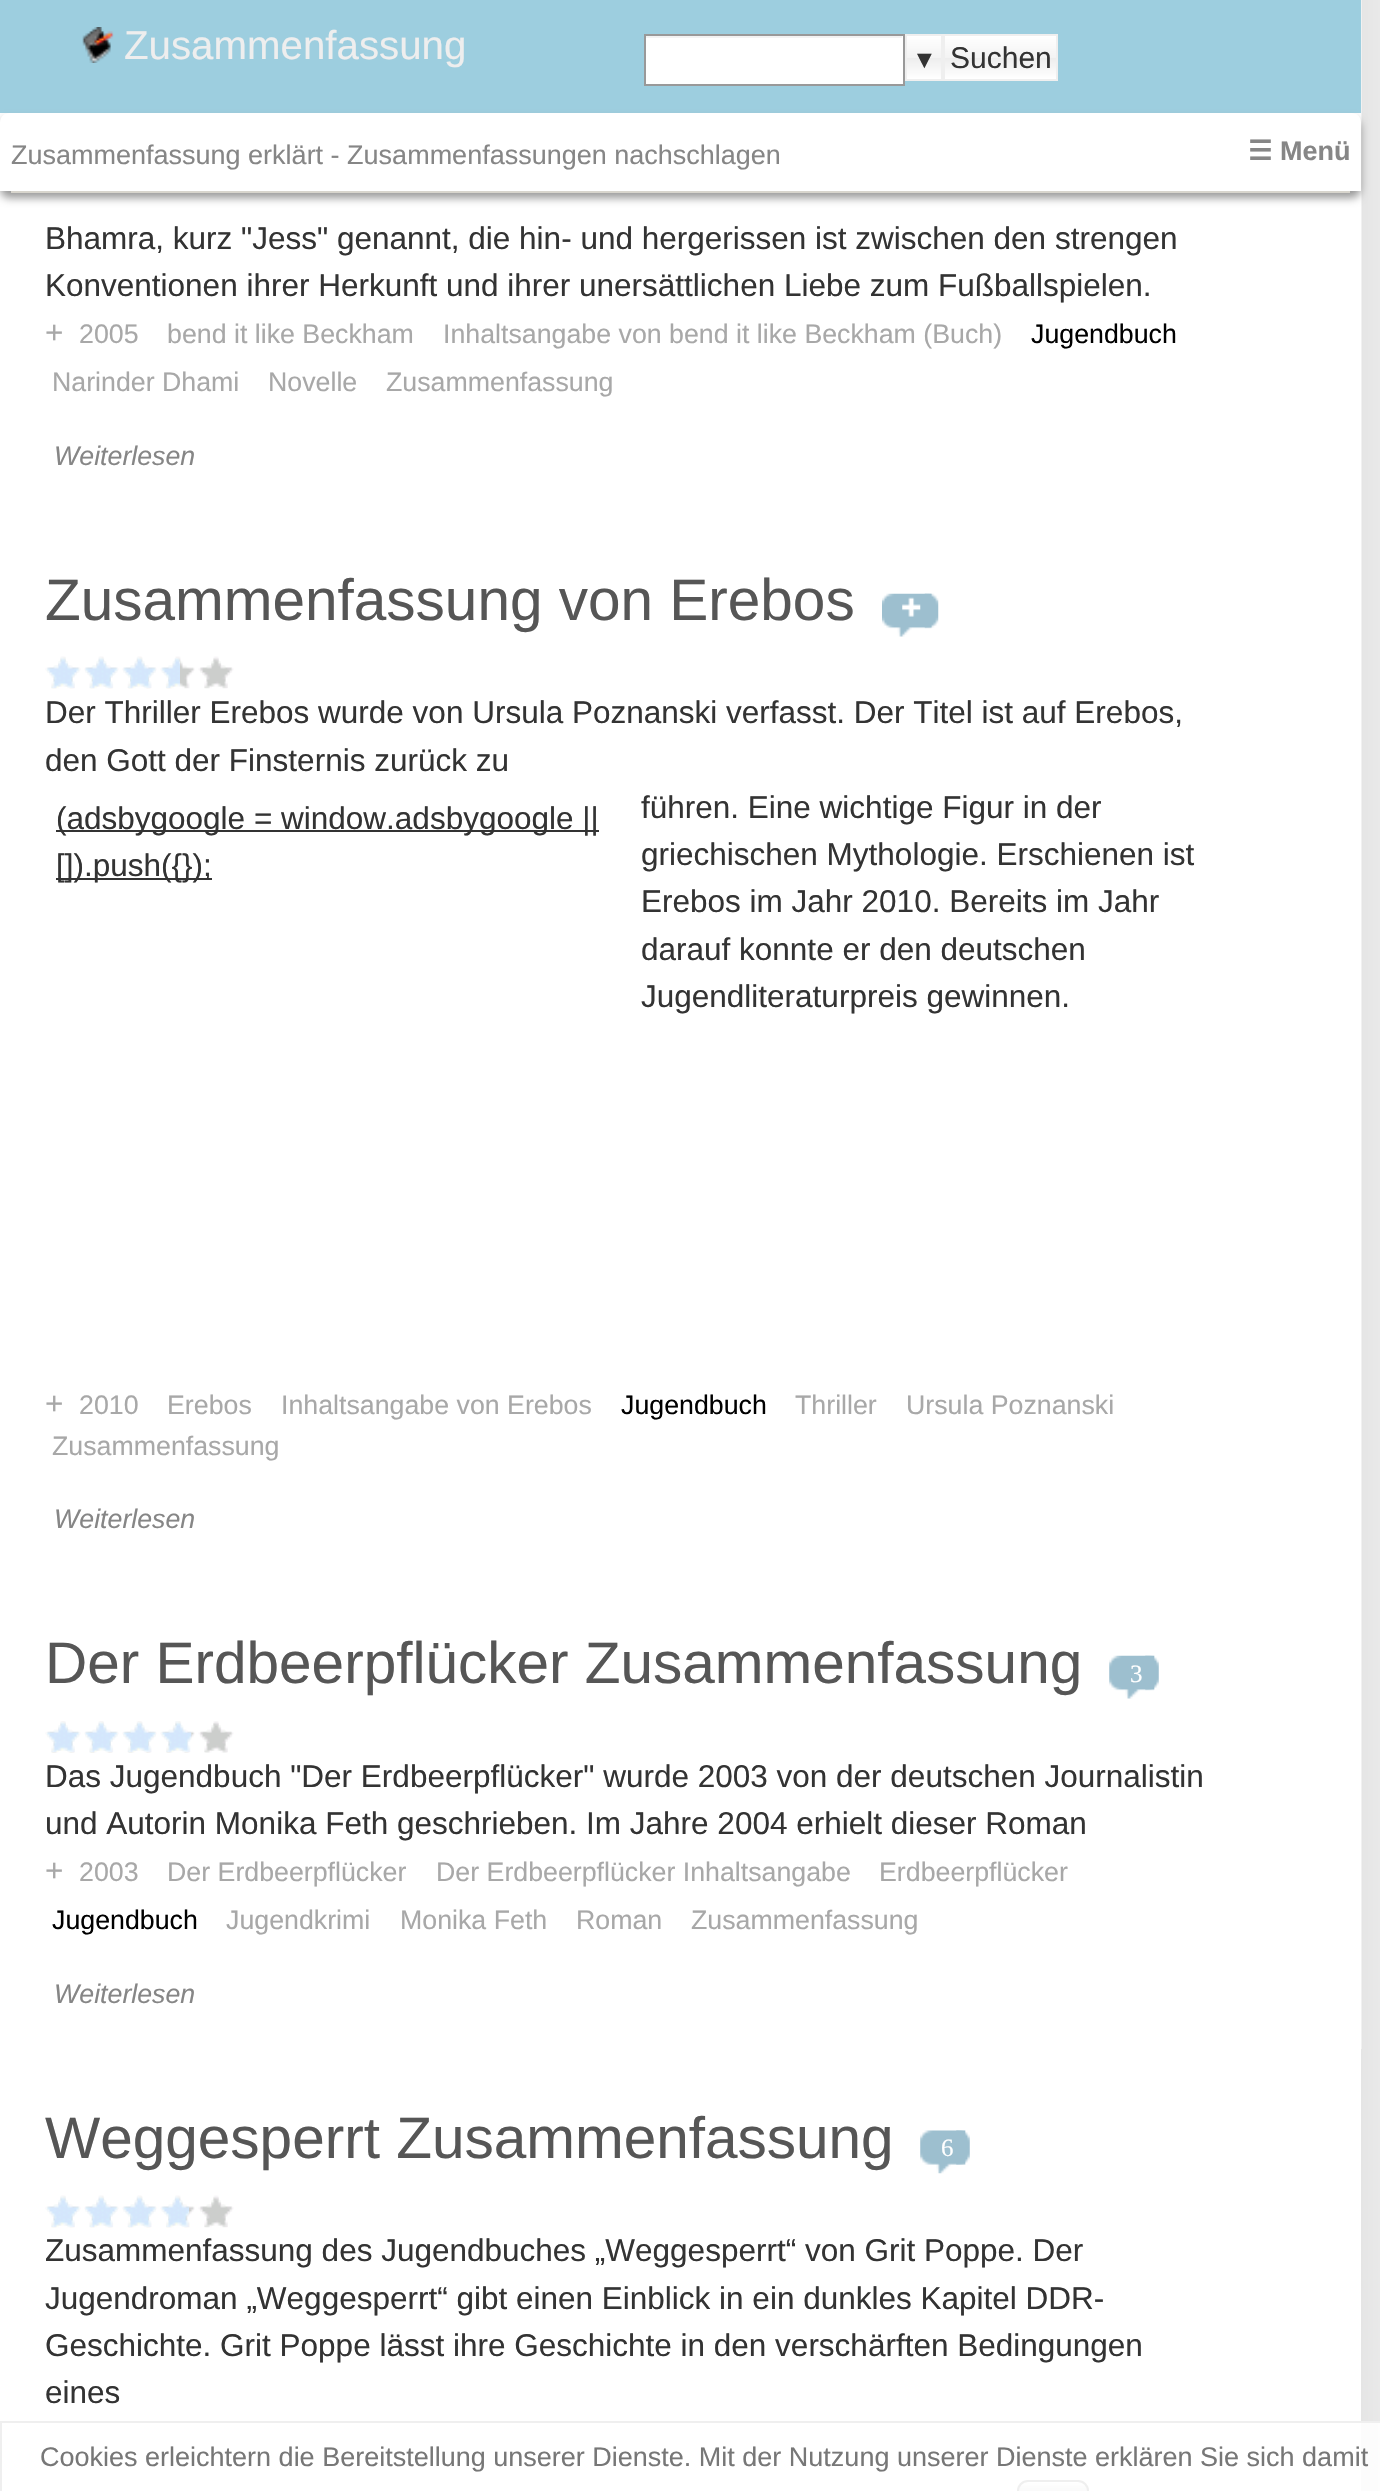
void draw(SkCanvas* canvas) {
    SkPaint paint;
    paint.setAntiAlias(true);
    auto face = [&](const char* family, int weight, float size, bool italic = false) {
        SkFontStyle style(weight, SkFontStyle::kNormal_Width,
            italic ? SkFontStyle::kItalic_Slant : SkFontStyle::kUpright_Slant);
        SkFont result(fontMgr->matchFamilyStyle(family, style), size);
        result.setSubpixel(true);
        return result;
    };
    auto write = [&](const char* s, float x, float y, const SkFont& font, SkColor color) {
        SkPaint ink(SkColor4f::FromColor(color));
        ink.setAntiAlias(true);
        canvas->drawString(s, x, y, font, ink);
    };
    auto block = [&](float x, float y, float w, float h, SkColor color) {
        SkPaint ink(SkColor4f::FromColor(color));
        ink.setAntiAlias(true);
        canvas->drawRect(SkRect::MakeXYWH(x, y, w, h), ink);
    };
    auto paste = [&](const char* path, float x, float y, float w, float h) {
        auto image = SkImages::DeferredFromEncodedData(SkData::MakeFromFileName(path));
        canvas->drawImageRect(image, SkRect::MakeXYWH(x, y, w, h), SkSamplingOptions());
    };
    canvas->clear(SK_ColorWHITE);
    canvas->save();
    canvas->clipRect(SkRect::MakeXYWH(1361, 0, 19, 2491));
    paint.setColor(SkColorSetARGB(51, 0, 0, 0));
    paint.setMaskFilter(SkMaskFilter::MakeBlur(kNormal_SkBlurStyle, 90));
    canvas->drawRect(SkRect::MakeXYWH(0, -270, 1361, 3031), paint);
    paint.setMaskFilter(nullptr);
    canvas->restore();
    block(1361, 0, 1, 2049, SkColorSetRGB(241, 241, 241));
    block(0, 0, 1361, 113, SkColorSetRGB(157, 206, 223));
    paste("pic1.png", 82, 27, 32, 36);
    auto kFont1 = face("Liberation Sans", 400, 40.25f);
    write("Zusammenfassung", 124, 59, kFont1, SkColorSetRGB(238, 238, 238));
    block(646, 36, 257, 48, SK_ColorWHITE);
    block(646, 36, 256, 2, SkColorSetRGB(243, 243, 243));
    paint.setStyle(SkPaint::kStroke_Style);
    paint.setStrokeWidth(2);
    paint.setColor(SkColorSetRGB(153, 153, 153));
    canvas->drawRect(SkRect::MakeXYWH(645, 35, 259, 50), paint);
    paint.setStyle(SkPaint::kFill_Style);
    {
        const SkColor colors[] = {SK_ColorWHITE, SkColorSetRGB(243, 243, 243), SkColorSetRGB(237, 237, 237), SK_ColorWHITE};
        const float stops[] = {0, 0.5f, 0.51f, 1};
        const SkPoint ends[] = {{924, 36}, {924, 79}};
        paint.setShader(SkGradientShader::MakeLinear(ends, colors, stops, 4, SkTileMode::kClamp));
        paint.setAlpha(255);
    }
    canvas->drawRect(SkRect::MakeXYWH(907, 36, 34, 43), paint);
    paint.setStyle(SkPaint::kStroke_Style);
    paint.setShader(nullptr);
    paint.setColor(SkColorSetRGB(239, 239, 239));
    canvas->drawRect(SkRect::MakeXYWH(906, 35, 36, 45), paint);
    auto kFont2 = face("Liberation Serif", 700, 25);
    write("▼", 912, 68, kFont2, SkColorSetRGB(51, 51, 51));
    paint.setStyle(SkPaint::kFill_Style);
    {
        const SkColor colors[] = {SK_ColorWHITE, SkColorSetRGB(243, 243, 243), SkColorSetRGB(237, 237, 237), SK_ColorWHITE};
        const float stops[] = {0, 0.5f, 0.51f, 1};
        const SkPoint ends[] = {{1000, 36}, {1000, 79}};
        paint.setShader(SkGradientShader::MakeLinear(ends, colors, stops, 4, SkTileMode::kClamp));
        paint.setAlpha(255);
    }
    canvas->drawRect(SkRect::MakeXYWH(945, 36, 111, 43), paint);
    paint.setStyle(SkPaint::kStroke_Style);
    paint.setShader(nullptr);
    paint.setColor(SkColorSetRGB(239, 239, 239));
    canvas->drawRect(SkRect::MakeXYWH(944, 35, 113, 45), paint);
    auto kFont3 = face("Liberation Sans", 400, 30);
    write("Suchen", 950, 68, kFont3, SkColorSetRGB(51, 51, 51));
    paint.setStyle(SkPaint::kFill_Style);
    paint.setColor(SkColorSetRGB(153, 153, 153));
    paint.setMaskFilter(SkMaskFilter::MakeBlur(kNormal_SkBlurStyle, 4.5f));
    canvas->drawRoundRect(SkRect::MakeXYWH(0, 119, 1361, 79), 9, 9, paint);
    paint.setMaskFilter(nullptr);
    paint.setColor(SK_ColorWHITE);
    canvas->drawPath(SkPathBuilder().moveTo(9, 113).lineTo(1352, 113).cubicTo(1357, 113, 1361, 117, 1361, 122).lineTo(1361, 191).lineTo(0, 191).lineTo(0, 122).cubicTo(0, 117, 4, 113, 9, 113).close().detach(), paint);
    block(11, 191, 1339, 2, SkColorSetRGB(216, 213, 205));
    auto kFont4 = face("Liberation Sans", 400, 27);
    write("Zusammenfassung erklärt - Zusammenfassungen nachschlagen", 11, 164, kFont4, SkColorSetRGB(134, 134, 134));
    auto kFont5 = face("DejaVu Sans", 700, 27);
    write("☰", 1248, 160, kFont5, SkColorSetRGB(134, 134, 134));
    auto kFont6 = face("Liberation Sans", 700, 27);
    write("Menü", 1280, 160, kFont6, SkColorSetRGB(134, 134, 134));
    auto kFont7 = face("Liberation Sans", 400, 31.5f);
    write("Bhamra, kurz \"Jess\" genannt, die hin- und hergerissen ist zwischen den strengen", 45, 249, kFont7, SkColorSetRGB(51, 51, 51));
    write("Konventionen ihrer Herkunft und ihrer unersättlichen Liebe zum Fußballspielen.", 45, 296, kFont7, SkColorSetRGB(51, 51, 51));
    write("+", 45, 343, kFont7, SkColorSetRGB(168, 168, 168));
    auto kFont8 = face("Liberation Sans", 400, 26.75f);
    write("2005", 79, 343, kFont8, SkColorSetRGB(168, 168, 168));
    write("bend it like Beckham", 167, 343, kFont8, SkColorSetRGB(168, 168, 168));
    write("Inhaltsangabe von bend it like Beckham (Buch)", 443, 343, kFont8, SkColorSetRGB(168, 168, 168));
    write("Jugendbuch", 1031, 343, kFont8, SK_ColorBLACK);
    write("Narinder Dhami", 52, 391, kFont8, SkColorSetRGB(168, 168, 168));
    write("Novelle", 268, 391, kFont8, SkColorSetRGB(168, 168, 168));
    write("Zusammenfassung", 386, 391, kFont8, SkColorSetRGB(168, 168, 168));
    auto kFont9 = face("Liberation Sans", 400, 26.75f, true);
    write("Weiterlesen", 54, 465, kFont9, SkColorSetRGB(134, 134, 134));
    auto kFont10 = face("Liberation Sans", 400, 58.5f);
    write("Zusammenfassung von Erebos", 45, 620, kFont10, SkColorSetRGB(86, 86, 86));
    paste("pic4.png", 924, 593, 15, 36);
    paste("pic2.png", 882, 593, 50, 44);
    paste("pic3.png", 902, 597, 19, 20);
    paste("pic5.png", 45, 656, 36, 33);
    paste("pic6.png", 46, 657, 34, 31);
    paste("pic7.png", 84, 656, 35, 33);
    paste("pic8.png", 85, 657, 33, 31);
    paste("pic9.png", 122, 656, 35, 33);
    paste("pic10.png", 123, 657, 33, 31);
    paste("pic11.png", 160, 656, 35, 33);
    paste("pic12.png", 161, 658, 19, 30);
    paste("pic13.png", 198, 656, 36, 33);
    paste("pic14.png", 200, 658, 32, 30);
    write("Der Thriller Erebos wurde von Ursula Poznanski verfasst. Der Titel ist auf Erebos,", 45, 723, kFont7, SkColorSetRGB(51, 51, 51));
    write("den Gott der Finsternis zurück zu", 45, 771, kFont7, SkColorSetRGB(51, 51, 51));
    block(56, 830, 543, 2, SkColorSetRGB(51, 51, 51));
    write("(adsbygoogle = window.adsbygoogle ||", 56, 829, kFont7, SkColorSetRGB(51, 51, 51));
    block(56, 878, 156, 2, SkColorSetRGB(51, 51, 51));
    write("[]).push({});", 56, 876, kFont7, SkColorSetRGB(51, 51, 51));
    write("führen. Eine wichtige Figur in der", 641, 818, kFont7, SkColorSetRGB(51, 51, 51));
    write("griechischen Mythologie. Erschienen ist", 641, 865, kFont7, SkColorSetRGB(51, 51, 51));
    write("Erebos im Jahr 2010. Bereits im Jahr", 641, 912, kFont7, SkColorSetRGB(51, 51, 51));
    write("darauf konnte er den deutschen", 641, 960, kFont7, SkColorSetRGB(51, 51, 51));
    write("Jugendliteraturpreis gewinnen.", 641, 1007, kFont7, SkColorSetRGB(51, 51, 51));
    write("+", 45, 1414, kFont7, SkColorSetRGB(168, 168, 168));
    write("2010", 79, 1414, kFont8, SkColorSetRGB(168, 168, 168));
    write("Erebos", 167, 1414, kFont8, SkColorSetRGB(168, 168, 168));
    write("Inhaltsangabe von Erebos", 281, 1414, kFont8, SkColorSetRGB(168, 168, 168));
    write("Jugendbuch", 621, 1414, kFont8, SK_ColorBLACK);
    write("Thriller", 795, 1414, kFont8, SkColorSetRGB(168, 168, 168));
    write("Ursula Poznanski", 906, 1414, kFont8, SkColorSetRGB(168, 168, 168));
    write("Zusammenfassung", 52, 1455, kFont8, SkColorSetRGB(168, 168, 168));
    write("Weiterlesen", 54, 1528, kFont9, SkColorSetRGB(134, 134, 134));
    write("Der Erdbeerpflücker Zusammenfassung", 45, 1683, kFont10, SkColorSetRGB(86, 86, 86));
    paste("pic16.png", 1145, 1655, 14, 36);
    paste("pic15.png", 1109, 1655, 46, 44);
    auto kFont11 = face("Liberation Serif", 400, 25);
    write("3", 1130, 1682, kFont11, SK_ColorWHITE);
    paste("pic17.png", 45, 1721, 36, 32);
    paste("pic18.png", 46, 1722, 34, 30);
    paste("pic19.png", 84, 1721, 35, 32);
    paste("pic20.png", 85, 1722, 33, 30);
    paste("pic21.png", 122, 1721, 35, 32);
    paste("pic22.png", 123, 1722, 33, 30);
    paste("pic23.png", 160, 1721, 35, 32);
    paste("pic24.png", 161, 1721, 31, 31);
    paste("pic25.png", 198, 1721, 36, 32);
    paste("pic26.png", 200, 1723, 32, 29);
    write("Das Jugendbuch \"Der Erdbeerpflücker\" wurde 2003 von der deutschen Journalistin", 45, 1787, kFont7, SkColorSetRGB(51, 51, 51));
    write("und Autorin Monika Feth geschrieben. Im Jahre 2004 erhielt dieser Roman", 45, 1834, kFont7, SkColorSetRGB(51, 51, 51));
    write("+", 45, 1881, kFont7, SkColorSetRGB(168, 168, 168));
    write("2003", 79, 1881, kFont8, SkColorSetRGB(168, 168, 168));
    write("Der Erdbeerpflücker", 167, 1881, kFont8, SkColorSetRGB(168, 168, 168));
    write("Der Erdbeerpflücker Inhaltsangabe", 436, 1881, kFont8, SkColorSetRGB(168, 168, 168));
    write("Erdbeerpflücker", 879, 1881, kFont8, SkColorSetRGB(168, 168, 168));
    write("Jugendbuch", 52, 1929, kFont8, SK_ColorBLACK);
    write("Jugendkrimi", 226, 1929, kFont8, SkColorSetRGB(168, 168, 168));
    write("Monika Feth", 400, 1929, kFont8, SkColorSetRGB(168, 168, 168));
    write("Roman", 576, 1929, kFont8, SkColorSetRGB(168, 168, 168));
    write("Zusammenfassung", 691, 1929, kFont8, SkColorSetRGB(168, 168, 168));
    write("Weiterlesen", 54, 2003, kFont9, SkColorSetRGB(134, 134, 134));
    write("Weggesperrt Zusammenfassung", 45, 2158, kFont10, SkColorSetRGB(86, 86, 86));
    paste("pic28.png", 956, 2130, 14, 35);
    paste("pic27.png", 920, 2130, 46, 44);
    write("6", 941, 2156, kFont11, SK_ColorWHITE);
    paste("pic5.png", 45, 2195, 36, 33);
    paste("pic6.png", 46, 2196, 34, 31);
    paste("pic7.png", 84, 2195, 35, 33);
    paste("pic8.png", 85, 2196, 33, 31);
    paste("pic9.png", 122, 2195, 35, 33);
    paste("pic10.png", 123, 2196, 33, 31);
    paste("pic11.png", 160, 2195, 35, 33);
    paste("pic29.png", 161, 2196, 28, 31);
    paste("pic13.png", 198, 2195, 36, 33);
    paste("pic14.png", 200, 2197, 32, 30);
    write("Zusammenfassung des Jugendbuches „Weggesperrt“ von Grit Poppe. Der", 45, 2261, kFont7, SkColorSetRGB(51, 51, 51));
    write("Jugendroman „Weggesperrt“ gibt einen Einblick in ein dunkles Kapitel DDR-", 45, 2309, kFont7, SkColorSetRGB(51, 51, 51));
    write("Geschichte. Grit Poppe lässt ihre Geschichte in den verschärften Bedingungen", 45, 2356, kFont7, SkColorSetRGB(51, 51, 51));
    write("eines", 45, 2403, kFont7, SkColorSetRGB(51, 51, 51));
    block(1361, 2421, 19, 70, SkColorSetARGB(222, 255, 255, 255));
    paint.setStyle(SkPaint::kStroke_Style);
    paint.setColor(SkColorSetARGB(242, 238, 238, 238));
    canvas->drawRect(SkRect::MakeXYWH(1, 2422, 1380, 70), paint);
    write("Cookies erleichtern die Bereitstellung unserer Dienste. Mit der Nutzung unserer Dienste erklären Sie sich damit", 40, 2466, kFont4, SkColorSetRGB(119, 119, 119));
    canvas->save();
    canvas->clipPath(SkPathBuilder().moveTo(1028, 2480).lineTo(1078, 2480).cubicTo(1084, 2480, 1089, 2485, 1089, 2491).lineTo(1089, 2518).cubicTo(1089, 2524, 1084, 2529, 1078, 2529).lineTo(1028, 2529).cubicTo(1022, 2529, 1017, 2524, 1017, 2518).lineTo(1017, 2491).cubicTo(1017, 2485, 1022, 2480, 1028, 2480).close().detach(), true);
    paint.setStyle(SkPaint::kFill_Style);
    {
        const SkColor colors[] = {SK_ColorWHITE, SkColorSetRGB(229, 229, 229)};
        const float stops[] = {0, 1};
        const SkPoint ends[] = {{1053, 2482}, {1053, 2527}};
        paint.setShader(SkGradientShader::MakeLinear(ends, colors, stops, 2, SkTileMode::kClamp));
        paint.setAlpha(255);
    }
    canvas->drawRect(SkRect::MakeXYWH(1017, 2482, 72, 9), paint);
    canvas->restore();
    paint.setStyle(SkPaint::kStroke_Style);
    paint.setShader(nullptr);
    paint.setColor(SkColorSetRGB(239, 239, 239));
    canvas->drawRoundRect(SkRect::MakeXYWH(1018, 2481, 70, 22), 10, 10, paint);
}
